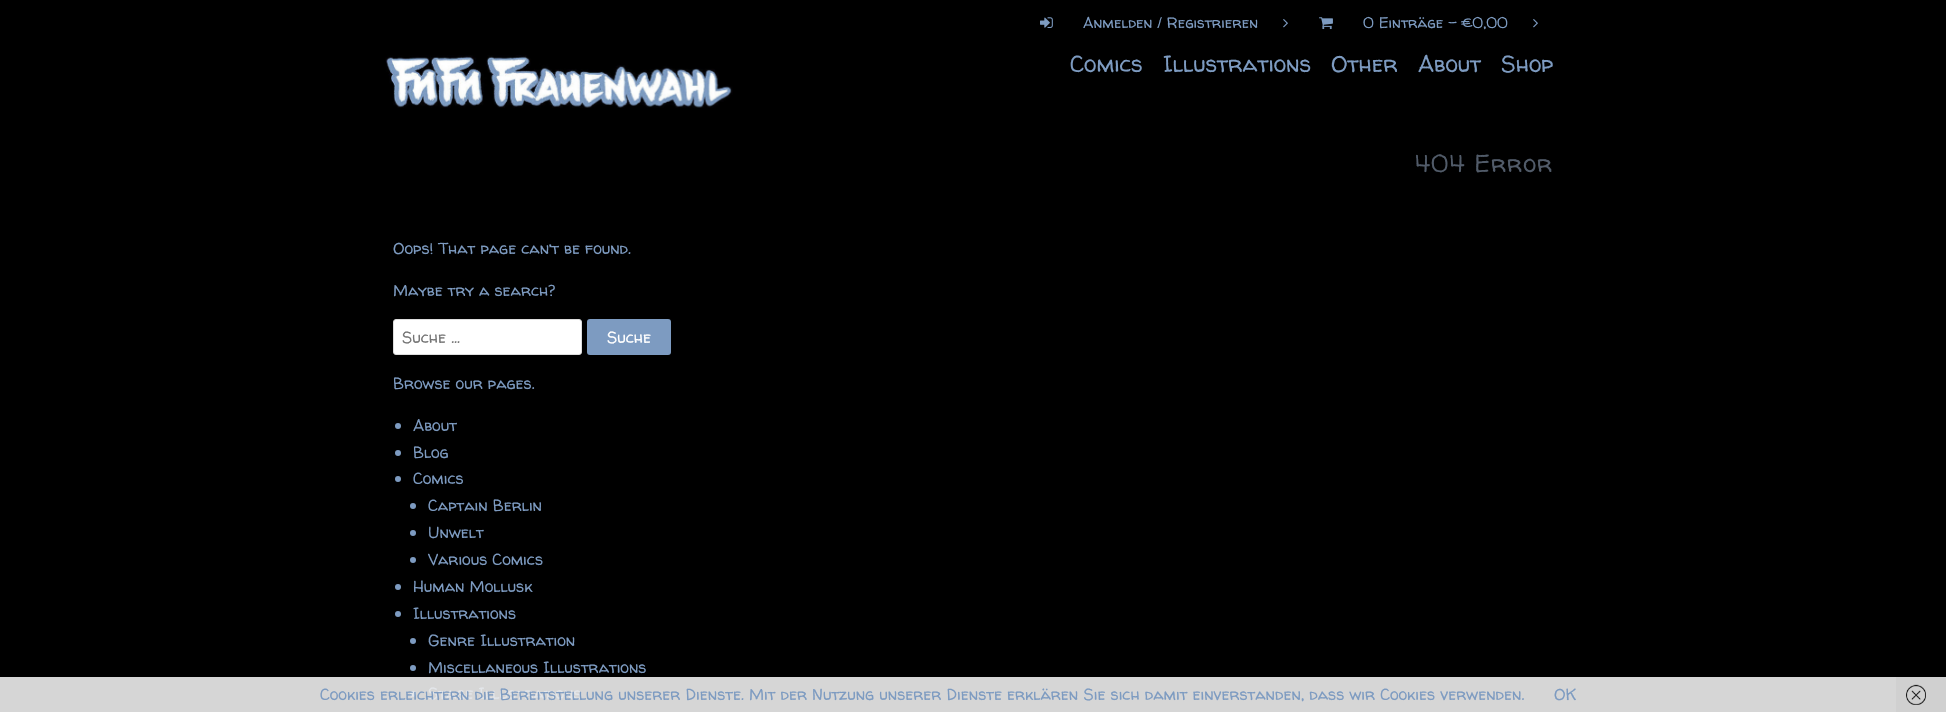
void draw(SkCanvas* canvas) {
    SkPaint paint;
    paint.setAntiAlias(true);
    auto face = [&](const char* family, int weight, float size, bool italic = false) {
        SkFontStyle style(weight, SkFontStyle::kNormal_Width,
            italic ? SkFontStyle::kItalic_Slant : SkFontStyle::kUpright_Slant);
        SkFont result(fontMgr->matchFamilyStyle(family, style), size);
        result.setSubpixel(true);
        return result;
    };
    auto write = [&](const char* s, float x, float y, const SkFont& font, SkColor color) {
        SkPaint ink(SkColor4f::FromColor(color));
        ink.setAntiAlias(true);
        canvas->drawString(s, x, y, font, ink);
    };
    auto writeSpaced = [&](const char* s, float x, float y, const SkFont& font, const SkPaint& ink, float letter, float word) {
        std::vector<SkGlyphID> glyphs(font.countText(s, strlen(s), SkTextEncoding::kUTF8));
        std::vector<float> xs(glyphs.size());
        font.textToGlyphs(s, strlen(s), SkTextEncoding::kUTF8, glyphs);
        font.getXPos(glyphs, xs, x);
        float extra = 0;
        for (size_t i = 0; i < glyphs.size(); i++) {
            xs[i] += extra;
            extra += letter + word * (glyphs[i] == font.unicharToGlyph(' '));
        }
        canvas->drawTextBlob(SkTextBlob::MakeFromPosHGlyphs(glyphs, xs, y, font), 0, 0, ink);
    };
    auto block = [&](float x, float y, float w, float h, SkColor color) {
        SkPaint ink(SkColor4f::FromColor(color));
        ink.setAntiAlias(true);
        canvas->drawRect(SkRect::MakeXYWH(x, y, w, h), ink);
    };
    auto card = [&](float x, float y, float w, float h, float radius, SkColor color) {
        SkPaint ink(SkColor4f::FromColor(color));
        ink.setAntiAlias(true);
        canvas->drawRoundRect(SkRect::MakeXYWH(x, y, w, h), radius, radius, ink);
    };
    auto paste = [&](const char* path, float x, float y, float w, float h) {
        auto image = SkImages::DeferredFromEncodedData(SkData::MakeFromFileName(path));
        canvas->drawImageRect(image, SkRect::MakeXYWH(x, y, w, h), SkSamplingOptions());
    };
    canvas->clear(SK_ColorBLACK);
    block(0, 677, 1896, 35, SkColorSetRGB(214, 214, 214));
    paste("pic1.png", 1040, 17, 13, 11);
    auto kFont1 = face("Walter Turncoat", 400, 15);
    write("Anmelden / Registrieren", 1083, 28, kFont1, SkColorSetRGB(125, 155, 193));
    paste("pic2.png", 1283, 19, 5, 9);
    paste("pic3.png", 1319, 17, 14, 13);
    write("0 Einträge -", 1363, 28, kFont1, SkColorSetRGB(125, 155, 193));
    write("€0,00", 1461, 28, kFont1, SkColorSetRGB(125, 155, 193));
    paste("pic2.png", 1533, 19, 5, 9);
    paste("pic4.png", 385, 55, 348, 53);
    auto kFont2 = face("Walter Turncoat", 400, 23);
    write("Comics", 1070, 72, kFont2, SkColorSetRGB(125, 155, 193));
    write("Illustrations", 1163, 72, kFont2, SkColorSetRGB(125, 155, 193));
    write("Other", 1331, 72, kFont2, SkColorSetRGB(125, 155, 193));
    write("About", 1418, 72, kFont2, SkColorSetRGB(125, 155, 193));
    write("Shop", 1501, 72, kFont2, SkColorSetRGB(125, 155, 193));
    auto kFont3 = face("Walter Turncoat", 400, 24);
    paint.setColor(SkColorSetRGB(81, 91, 105));
    writeSpaced("404 Error", 1415, 172, kFont3, paint, 1, 0);
    auto kFont4 = face("Walter Turncoat", 400, 16);
    write("Oops! That page can’t be found.", 393, 254, kFont4, SkColorSetRGB(125, 155, 193));
    write("Maybe try a search?", 393, 296, kFont4, SkColorSetRGB(125, 155, 193));
    paint.setColor(SK_ColorWHITE);
    canvas->drawRoundRect(SkRect::MakeXYWH(393.5f, 319.5f, 188, 35), 2.5f, 2.5f, paint);
    paint.setStyle(SkPaint::kStroke_Style);
    paint.setStrokeWidth(1);
    paint.setColor(SkColorSetRGB(221, 221, 221));
    canvas->drawRoundRect(SkRect::MakeXYWH(393.5f, 319.5f, 188, 35), 2.5f, 2.5f, paint);
    write("Suche …", 402, 343, kFont4, SkColorSetRGB(117, 117, 117));
    card(587, 319, 84, 36, 3, SkColorSetRGB(125, 155, 193));
    write("Suche", 607, 343, kFont4, SK_ColorWHITE);
    write("Browse our pages.", 393, 389, kFont4, SkColorSetRGB(125, 155, 193));
    paint.setStyle(SkPaint::kFill_Style);
    paint.setColor(SkColorSetRGB(125, 155, 193));
    canvas->drawCircle(398, 426, 3, paint);
    write("About", 413, 431, kFont4, SkColorSetRGB(125, 155, 193));
    canvas->drawCircle(398, 453, 3, paint);
    write("Blog", 413, 458, kFont4, SkColorSetRGB(125, 155, 193));
    canvas->drawCircle(398, 479, 3, paint);
    write("Comics", 413, 484, kFont4, SkColorSetRGB(125, 155, 193));
    canvas->drawCircle(413, 506, 3, paint);
    write("Captain Berlin", 428, 511, kFont4, SkColorSetRGB(125, 155, 193));
    canvas->drawCircle(413, 533, 3, paint);
    write("Unwelt", 428, 538, kFont4, SkColorSetRGB(125, 155, 193));
    canvas->drawCircle(413, 560, 3, paint);
    write("Various Comics", 428, 565, kFont4, SkColorSetRGB(125, 155, 193));
    canvas->drawCircle(398, 587, 3, paint);
    write("Human Mollusk", 413, 592, kFont4, SkColorSetRGB(125, 155, 193));
    canvas->drawCircle(398, 614, 3, paint);
    write("Illustrations", 413, 619, kFont4, SkColorSetRGB(125, 155, 193));
    canvas->drawCircle(413, 641, 3, paint);
    write("Genre Illustration", 428, 646, kFont4, SkColorSetRGB(125, 155, 193));
    canvas->drawCircle(413, 668, 3, paint);
    write("Miscellaneous Illustrations", 428, 673, kFont4, SkColorSetRGB(125, 155, 193));
    paint.setColor(SkColorSetRGB(227, 230, 234));
    canvas->drawCircle(413, 694, 3, paint);
    write("Stage Illustrations", 428, 699, kFont4, SkColorSetRGB(227, 230, 234));
    write("Cookies erleichtern die Bereitstellung unserer Dienste. Mit der Nutzung unserer Dienste erklären Sie sich damit einverstanden, dass wir Cookies verwenden.", 320, 700, kFont4, SkColorSetRGB(125, 155, 193));
    write("OK", 1554, 700, kFont4, SkColorSetRGB(125, 155, 193));
    block(1896, 677, 50, 35, SkColorSetRGB(208, 208, 208));
    paste("pic5.png", 1906, 684, 20, 21);
}
